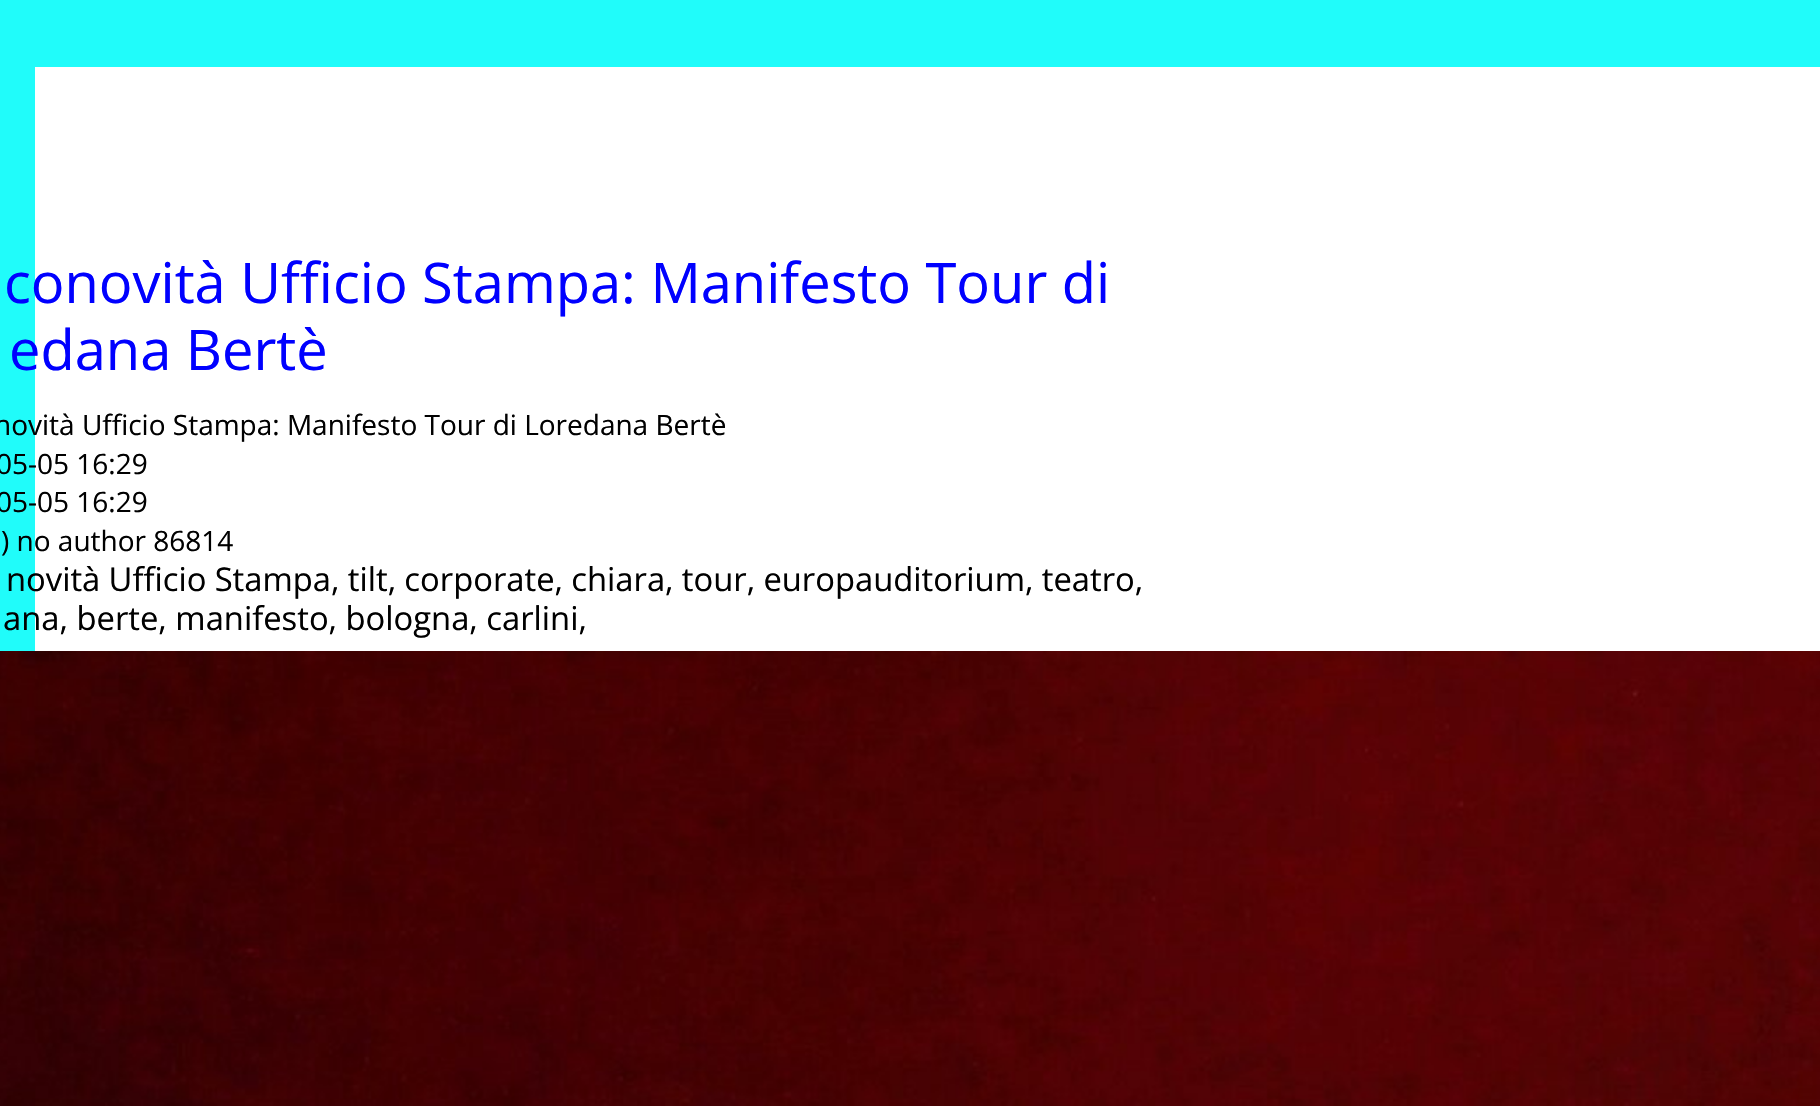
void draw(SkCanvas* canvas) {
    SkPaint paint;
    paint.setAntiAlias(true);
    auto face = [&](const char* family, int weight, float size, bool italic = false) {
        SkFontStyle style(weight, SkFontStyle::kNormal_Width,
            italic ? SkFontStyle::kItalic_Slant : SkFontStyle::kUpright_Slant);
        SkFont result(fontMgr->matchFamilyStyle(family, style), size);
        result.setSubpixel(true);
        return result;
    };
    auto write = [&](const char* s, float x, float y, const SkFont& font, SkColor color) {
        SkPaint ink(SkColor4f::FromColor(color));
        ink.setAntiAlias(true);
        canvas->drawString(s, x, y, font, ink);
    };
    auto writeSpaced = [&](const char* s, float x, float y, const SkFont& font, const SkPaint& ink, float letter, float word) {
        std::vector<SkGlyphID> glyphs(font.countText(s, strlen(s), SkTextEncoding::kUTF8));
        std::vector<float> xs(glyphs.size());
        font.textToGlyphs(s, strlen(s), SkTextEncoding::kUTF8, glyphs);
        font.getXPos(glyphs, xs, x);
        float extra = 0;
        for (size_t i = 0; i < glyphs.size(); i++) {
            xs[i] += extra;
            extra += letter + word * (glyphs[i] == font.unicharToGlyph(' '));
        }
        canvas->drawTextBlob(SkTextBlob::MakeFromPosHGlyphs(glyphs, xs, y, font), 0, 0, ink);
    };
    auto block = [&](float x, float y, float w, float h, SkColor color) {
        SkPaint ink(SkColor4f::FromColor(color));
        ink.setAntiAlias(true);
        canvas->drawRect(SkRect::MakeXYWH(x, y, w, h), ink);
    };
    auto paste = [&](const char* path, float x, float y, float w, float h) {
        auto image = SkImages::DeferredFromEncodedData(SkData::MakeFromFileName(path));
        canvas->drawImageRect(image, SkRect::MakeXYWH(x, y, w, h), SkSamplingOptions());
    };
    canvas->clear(SkColorSetRGB(32, 252, 250));
    block(35, 67, 1785, 584, SK_ColorWHITE);
    auto kFont1 = face("Open Sans", 400, 56);
    write("conovità Ufficio Stampa: Manifesto Tour di", 4, 303, kFont1, SkColorSetRGB(0, 0, 255));
    write("edana Bertè", 9, 370, kFont1, SkColorSetRGB(0, 0, 255));
    auto kFont2 = face("Open Sans", 400, 28);
    write("novità Ufficio Stampa: Manifesto Tour di Loredana Bertè", -6, 435, kFont2, SK_ColorBLACK);
    write("05-05 16:29", -4, 474, kFont2, SK_ColorBLACK);
    write("05-05 16:29", -4, 512, kFont2, SK_ColorBLACK);
    write(") no author 86814", 1, 551, kFont2, SK_ColorBLACK);
    auto kFont3 = face("Open Sans", 400, 32.75f);
    paint.setColor(SK_ColorBLACK);
    writeSpaced("novità Ufficio Stampa, tilt, corporate, chiara, tour, europauditorium, teatro,", 6, 591, kFont3, paint, 0, -0.25f);
    write("ana, berte, manifesto, bologna, carlini,", 3, 630, kFont3, SK_ColorBLACK);
    paste("pic1.png", 0, 651, 1820, 455);
}
